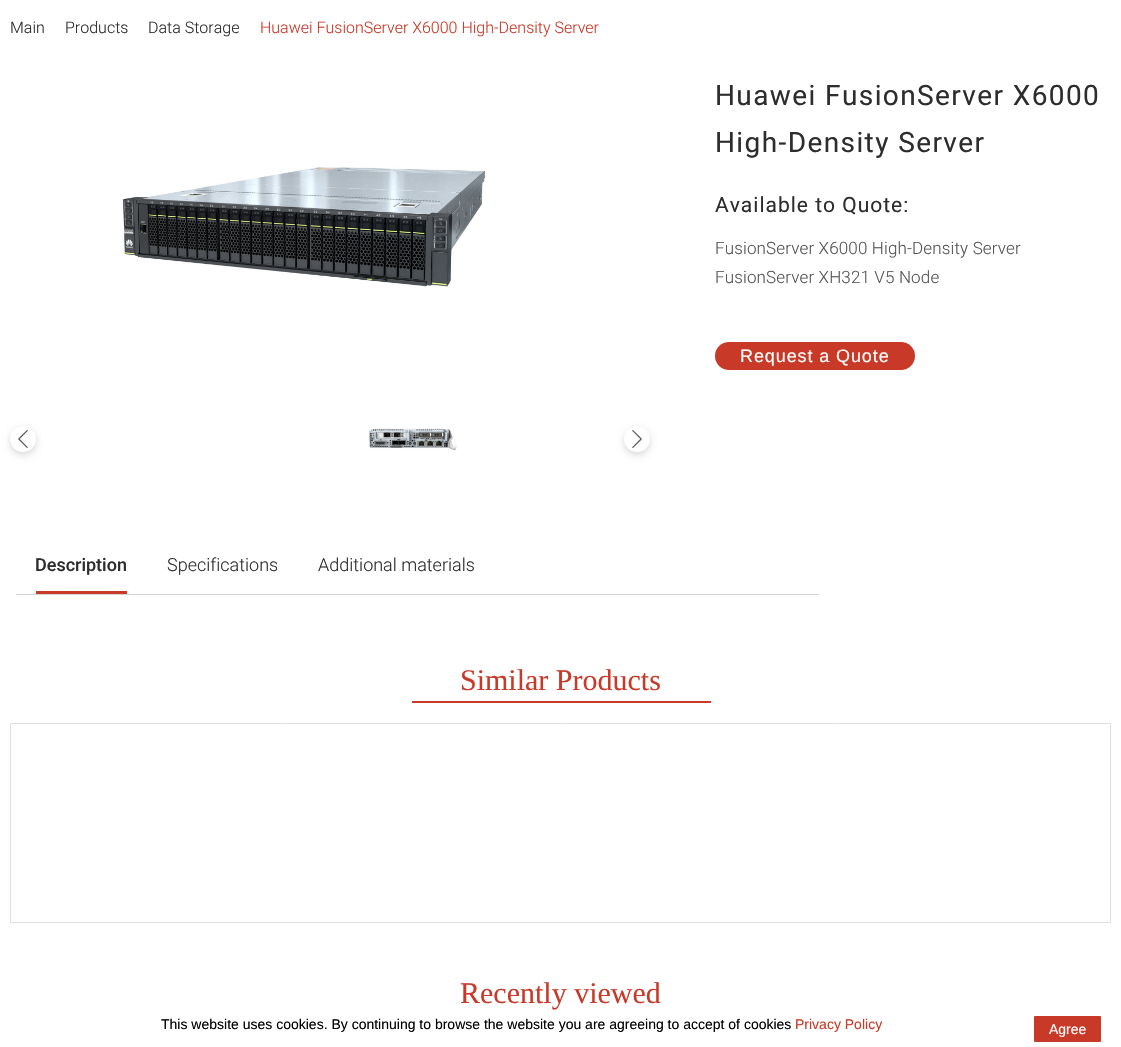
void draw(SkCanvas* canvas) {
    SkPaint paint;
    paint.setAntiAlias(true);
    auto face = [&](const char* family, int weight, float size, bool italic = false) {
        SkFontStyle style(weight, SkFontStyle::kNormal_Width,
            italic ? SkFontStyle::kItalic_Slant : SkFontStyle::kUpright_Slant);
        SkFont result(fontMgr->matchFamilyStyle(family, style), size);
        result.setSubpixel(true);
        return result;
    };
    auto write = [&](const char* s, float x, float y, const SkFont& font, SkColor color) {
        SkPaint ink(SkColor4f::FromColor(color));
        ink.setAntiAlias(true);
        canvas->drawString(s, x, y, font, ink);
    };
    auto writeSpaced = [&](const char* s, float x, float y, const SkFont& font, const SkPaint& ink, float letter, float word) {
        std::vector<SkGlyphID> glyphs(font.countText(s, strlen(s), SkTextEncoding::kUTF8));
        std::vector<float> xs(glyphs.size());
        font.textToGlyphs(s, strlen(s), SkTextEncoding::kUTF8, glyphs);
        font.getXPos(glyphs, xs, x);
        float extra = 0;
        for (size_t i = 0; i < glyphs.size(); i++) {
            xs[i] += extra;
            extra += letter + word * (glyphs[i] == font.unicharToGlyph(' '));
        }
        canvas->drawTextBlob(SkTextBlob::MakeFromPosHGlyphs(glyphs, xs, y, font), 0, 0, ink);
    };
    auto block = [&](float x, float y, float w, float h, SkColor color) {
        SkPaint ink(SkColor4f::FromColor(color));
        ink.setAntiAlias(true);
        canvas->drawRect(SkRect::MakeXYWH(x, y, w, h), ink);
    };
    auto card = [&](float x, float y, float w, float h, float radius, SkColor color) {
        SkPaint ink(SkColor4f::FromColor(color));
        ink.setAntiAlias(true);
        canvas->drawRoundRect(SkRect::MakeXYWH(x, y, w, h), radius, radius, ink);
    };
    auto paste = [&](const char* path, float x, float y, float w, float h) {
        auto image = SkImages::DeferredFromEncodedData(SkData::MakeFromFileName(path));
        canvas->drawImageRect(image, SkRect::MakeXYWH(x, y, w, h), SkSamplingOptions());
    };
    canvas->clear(SK_ColorWHITE);
    auto kFont1 = face("Roboto", 300, 16);
    write("Main", 10, 33, kFont1, SkColorSetRGB(45, 45, 45));
    write("Products", 65, 33, kFont1, SkColorSetRGB(45, 45, 45));
    write("Data Storage", 148, 33, kFont1, SkColorSetRGB(45, 45, 45));
    write("Huawei FusionServer X6000 High-Density Server", 260, 33, kFont1, SkColorSetRGB(201, 57, 39));
    paste("pic1.png", 123, 166, 363, 123);
    paint.setColor(SkColorSetARGB(38, 0, 0, 0));
    paint.setMaskFilter(SkMaskFilter::MakeBlur(kNormal_SkBlurStyle, 3.5f));
    canvas->drawRoundRect(SkRect::MakeXYWH(10, 429, 26, 26), 13, 13, paint);
    paint.setMaskFilter(nullptr);
    paint.setColor(SK_ColorWHITE);
    canvas->drawCircle(23, 439, 13, paint);
    paste("pic2.png", 18, 430, 10, 18);
    paste("pic3.png", 369, 427, 88, 25);
    paint.setColor(SkColorSetARGB(38, 0, 0, 0));
    paint.setMaskFilter(SkMaskFilter::MakeBlur(kNormal_SkBlurStyle, 3.5f));
    canvas->drawRoundRect(SkRect::MakeXYWH(624, 429, 26, 26), 13, 13, paint);
    paint.setMaskFilter(nullptr);
    paint.setColor(SK_ColorWHITE);
    canvas->drawCircle(637, 439, 13, paint);
    paste("pic4.png", 632, 430, 10, 18);
    auto kFont2 = face("Roboto", 400, 28);
    paint.setColor(SkColorSetRGB(45, 45, 45));
    writeSpaced("Huawei FusionServer X6000", 715, 105, kFont2, paint, 1.4f, 0);
    writeSpaced("High-Density Server", 715, 152, kFont2, paint, 1.4f, 0);
    auto kFont3 = face("Roboto", 400, 21);
    writeSpaced("Available to Quote:", 715, 212, kFont3, paint, 1, 0);
    auto kFont4 = face("Roboto", 300, 17);
    paint.setColor(SkColorSetRGB(83, 86, 85));
    writeSpaced("FusionServer X6000 High-Density Server", 715, 254, kFont4, paint, 0.15f, 0);
    writeSpaced("FusionServer XH321 V5 Node", 715, 283, kFont4, paint, 0.15f, 0);
    card(715, 342, 200, 28, 14, SkColorSetRGB(201, 57, 39));
    auto kFont5 = face("Liberation Sans", 400, 18);
    paint.setColor(SK_ColorWHITE);
    writeSpaced("Request a Quote", 740, 362, kFont5, paint, 0.9f, 0);
    block(16, 594, 803, 1, SkColorSetRGB(211, 211, 211));
    block(36, 591, 91, 3, SkColorSetRGB(201, 57, 39));
    auto kFont6 = face("Roboto", 500, 18);
    write("Description", 35, 571, kFont6, SkColorSetRGB(45, 45, 45));
    auto kFont7 = face("Roboto", 300, 18);
    write("Specifications", 167, 571, kFont7, SkColorSetRGB(45, 45, 45));
    write("Additional materials", 318, 571, kFont7, SkColorSetRGB(45, 45, 45));
    block(412, 701, 299, 2, SkColorSetRGB(201, 57, 39));
    auto kFont8 = face("Liberation Serif", 400, 30);
    write("Similar Products", 460, 690, kFont8, SkColorSetRGB(201, 57, 39));
    paint.setStyle(SkPaint::kStroke_Style);
    paint.setStrokeWidth(1);
    paint.setColor(SkColorSetRGB(223, 223, 223));
    canvas->drawRoundRect(SkRect::MakeXYWH(10.5f, 723.5f, 1100, 199), 0.5f, 0.5f, paint);
    write("Recently viewed", 460, 1003, kFont8, SkColorSetRGB(201, 57, 39));
    auto kFont9 = face("Liberation Sans", 400, 14);
    write("This website uses cookies. By continuing to browse the website you are agreeing to accept of cookies", 161, 1029, kFont9, SK_ColorBLACK);
    write("Privacy Policy", 795, 1029, kFont9, SkColorSetRGB(201, 57, 39));
    card(1034, 1016, 67, 26, 1, SkColorSetRGB(201, 57, 39));
    write("Agree", 1049, 1034, kFont9, SK_ColorWHITE);
}
